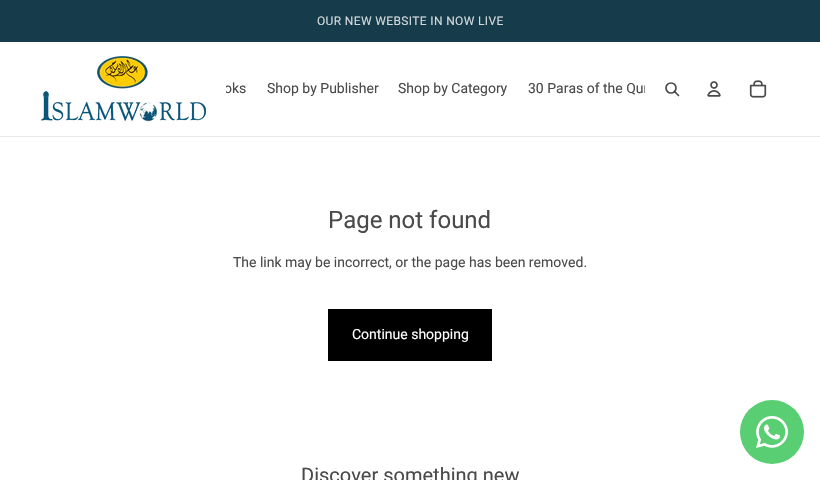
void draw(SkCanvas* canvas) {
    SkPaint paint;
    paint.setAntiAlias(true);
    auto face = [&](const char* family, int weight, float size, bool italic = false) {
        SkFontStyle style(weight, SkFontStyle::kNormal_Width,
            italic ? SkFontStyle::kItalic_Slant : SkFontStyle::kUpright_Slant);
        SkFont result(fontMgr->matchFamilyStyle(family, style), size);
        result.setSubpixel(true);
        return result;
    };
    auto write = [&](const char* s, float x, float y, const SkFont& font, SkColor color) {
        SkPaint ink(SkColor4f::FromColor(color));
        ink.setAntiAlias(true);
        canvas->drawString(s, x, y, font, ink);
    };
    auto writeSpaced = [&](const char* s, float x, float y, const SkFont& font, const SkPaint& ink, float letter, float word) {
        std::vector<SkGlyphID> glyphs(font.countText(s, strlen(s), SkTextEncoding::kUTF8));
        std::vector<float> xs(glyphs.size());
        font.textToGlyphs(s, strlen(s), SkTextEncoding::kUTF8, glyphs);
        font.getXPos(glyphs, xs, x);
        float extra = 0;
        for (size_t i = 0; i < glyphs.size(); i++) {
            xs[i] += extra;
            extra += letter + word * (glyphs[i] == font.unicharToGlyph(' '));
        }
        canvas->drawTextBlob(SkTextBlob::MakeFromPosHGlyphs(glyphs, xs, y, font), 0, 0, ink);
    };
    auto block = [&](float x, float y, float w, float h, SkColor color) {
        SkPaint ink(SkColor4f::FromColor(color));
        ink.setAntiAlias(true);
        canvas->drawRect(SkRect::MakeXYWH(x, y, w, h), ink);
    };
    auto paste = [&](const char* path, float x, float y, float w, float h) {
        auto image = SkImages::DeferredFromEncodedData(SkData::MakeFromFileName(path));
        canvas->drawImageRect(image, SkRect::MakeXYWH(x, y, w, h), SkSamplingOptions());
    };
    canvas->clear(SK_ColorWHITE);
    block(0, 0, 820, 42, SkColorSetRGB(22, 60, 75));
    auto kFont1 = face("Roboto", 400, 12);
    paint.setColor(SkColorSetRGB(211, 218, 221));
    writeSpaced("OUR NEW WEBSITE IN NOW LIVE", 317, 25, kFont1, paint, 0.35f, 0);
    block(0, 136, 820, 1, SkColorSetRGB(234, 232, 230));
    paste("pic1.png", 41, 56, 165, 66);
    canvas->save();
    canvas->clipRect(SkRect::MakeXYWH(226, 75, 419, 28));
    auto kFont2 = face("Roboto", 400, 14);
    write("oks", 224, 93, kFont2, SkColorSetRGB(74, 74, 74));
    canvas->restore();
    write("Shop by Publisher", 267, 93, kFont2, SkColorSetRGB(74, 74, 74));
    write("Shop by Category", 398, 93, kFont2, SkColorSetRGB(74, 74, 74));
    canvas->save();
    canvas->clipRect(SkRect::MakeXYWH(226, 75, 419, 28));
    write("30 Paras of the Qur", 528, 93, kFont2, SkColorSetRGB(74, 74, 74));
    canvas->restore();
    paint.setStyle(SkPaint::kStroke_Style);
    paint.setStrokeWidth(1.7f);
    paint.setColor(SkColorSetRGB(74, 74, 74));
    canvas->drawCircle(671, 88, 5, paint);
    paint.setStrokeCap(SkPaint::kRound_Cap);
    paint.setStrokeJoin(SkPaint::kRound_Join);
    paint.setColor(SkColorSetARGB(181, 0, 0, 0));
    canvas->drawPath(SkPathBuilder().moveTo(675, 92).lineTo(678.5f, 95.5f).detach(), paint);
    paste("pic2.png", 707, 81, 14, 16);
    paste("pic3.png", 749, 80, 18, 18);
    auto kFont3 = face("Roboto", 400, 24);
    write("Page not found", 328, 228, kFont3, SkColorSetRGB(74, 74, 74));
    write("The link may be incorrect, or the page has been removed.", 233, 267, kFont2, SkColorSetRGB(74, 74, 74));
    block(328, 309, 164, 52, SK_ColorBLACK);
    write("Continue shopping", 352, 339, kFont2, SK_ColorWHITE);
    auto kFont4 = face("Roboto", 400, 20);
    write("Discover something new", 301, 482, kFont4, SkColorSetRGB(74, 74, 74));
    paint.setStyle(SkPaint::kFill_Style);
    paint.setColor(SkColorSetRGB(89, 206, 114));
    canvas->drawCircle(772, 432, 32, paint);
    paste("pic4.png", 756, 416, 32, 32);
}
